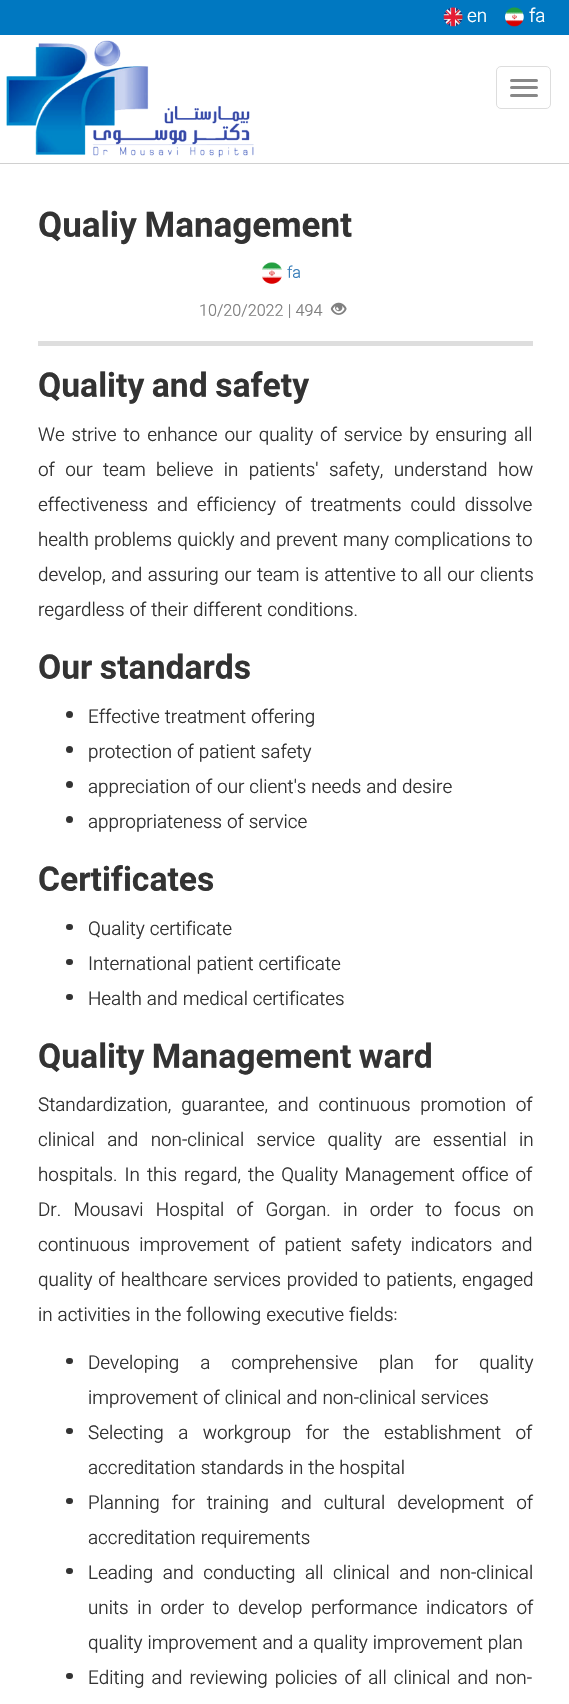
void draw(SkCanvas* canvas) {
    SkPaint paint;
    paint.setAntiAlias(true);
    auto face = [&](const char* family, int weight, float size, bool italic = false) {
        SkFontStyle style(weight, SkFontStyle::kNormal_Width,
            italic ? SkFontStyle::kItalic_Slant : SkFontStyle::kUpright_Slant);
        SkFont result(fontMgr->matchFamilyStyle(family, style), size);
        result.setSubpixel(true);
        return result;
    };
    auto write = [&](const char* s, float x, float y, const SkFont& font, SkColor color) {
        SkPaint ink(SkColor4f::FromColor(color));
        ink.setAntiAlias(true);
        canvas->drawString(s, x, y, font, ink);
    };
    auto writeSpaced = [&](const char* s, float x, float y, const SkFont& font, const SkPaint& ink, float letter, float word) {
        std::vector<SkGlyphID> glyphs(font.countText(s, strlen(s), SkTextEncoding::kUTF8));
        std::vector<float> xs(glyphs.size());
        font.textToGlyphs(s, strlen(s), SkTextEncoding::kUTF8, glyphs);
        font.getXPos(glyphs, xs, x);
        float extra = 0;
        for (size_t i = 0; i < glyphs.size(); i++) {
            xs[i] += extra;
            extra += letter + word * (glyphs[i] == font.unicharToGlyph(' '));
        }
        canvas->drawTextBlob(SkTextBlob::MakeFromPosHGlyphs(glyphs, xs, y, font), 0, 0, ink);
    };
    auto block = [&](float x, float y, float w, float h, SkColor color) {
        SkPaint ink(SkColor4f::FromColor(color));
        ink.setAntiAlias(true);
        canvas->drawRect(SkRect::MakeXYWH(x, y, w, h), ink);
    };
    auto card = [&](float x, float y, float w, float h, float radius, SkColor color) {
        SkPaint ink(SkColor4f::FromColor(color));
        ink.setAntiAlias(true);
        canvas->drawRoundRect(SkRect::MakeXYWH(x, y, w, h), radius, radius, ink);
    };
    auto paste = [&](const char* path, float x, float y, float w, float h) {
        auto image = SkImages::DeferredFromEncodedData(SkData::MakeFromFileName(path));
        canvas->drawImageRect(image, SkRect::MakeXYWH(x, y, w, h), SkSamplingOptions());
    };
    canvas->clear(SK_ColorWHITE);
    block(0, 0, 569, 35, SkColorSetRGB(0, 120, 193));
    paste("pic1.png", 443, 7, 20, 20);
    auto kFont1 = face("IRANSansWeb", 300, 17.5f);
    write("en", 467, 21, kFont1, SK_ColorWHITE);
    paste("pic2.png", 505, 7, 19, 20);
    write("fa", 529, 21, kFont1, SK_ColorWHITE);
    block(0, 163, 569, 1, SkColorSetRGB(208, 208, 208));
    paste("pic3.png", 6, 40, 248, 118);
    paint.setStyle(SkPaint::kStroke_Style);
    paint.setStrokeWidth(1);
    paint.setColor(SkColorSetRGB(221, 221, 221));
    canvas->drawRoundRect(SkRect::MakeXYWH(496.5f, 66.5f, 54, 42), 4.5f, 4.5f, paint);
    card(510, 79, 28, 3, 1.5f, SkColorSetRGB(136, 136, 136));
    card(510, 86, 28, 3, 1.5f, SkColorSetRGB(136, 136, 136));
    card(510, 94, 28, 3, 1.5f, SkColorSetRGB(136, 136, 136));
    auto kFont2 = face("IRANSansWeb", 700, 32.5f);
    write("Qualiy Management", 38, 235, kFont2, SkColorSetRGB(51, 51, 51));
    paste("pic4.png", 262, 262, 20, 22);
    auto kFont3 = face("IRANSansWeb", 300, 15);
    write("fa", 287, 277, kFont3, SkColorSetRGB(51, 122, 183));
    write("10/20/2022 | 494", 199, 315, kFont3, SkColorSetRGB(128, 128, 128));
    paste("pic5.png", 330, 302, 17, 13);
    block(38, 341, 495, 5, SkColorSetRGB(222, 222, 222));
    auto kFont4 = face("IRANSansWeb", 700, 31.25f);
    write("Quality and safety", 38, 395, kFont4, SkColorSetRGB(51, 51, 51));
    paint.setStyle(SkPaint::kFill_Style);
    paint.setColor(SkColorSetRGB(51, 51, 51));
    writeSpaced("We strive to enhance our quality of service by ensuring all", 38, 440, kFont1, paint, 0, 2);
    writeSpaced("of our team believe in patients' safety, understand how", 38, 475, kFont1, paint, 0, 5.5f);
    writeSpaced("effectiveness and efficiency of treatments could dissolve", 38, 510, kFont1, paint, 0, 4);
    writeSpaced("health problems quickly and prevent many complications to", 38, 545, kFont1, paint, 0, 0.25f);
    writeSpaced("develop, and assuring our team is attentive to all our clients", 38, 580, kFont1, paint, 0, 0.5f);
    write("regardless of their different conditions.", 38, 615, kFont1, SkColorSetRGB(51, 51, 51));
    write("Our standards", 38, 677, kFont4, SkColorSetRGB(51, 51, 51));
    canvas->drawCircle(69.5f, 714.5f, 3.5f, paint);
    write("Effective treatment offering", 88, 722, kFont1, SkColorSetRGB(51, 51, 51));
    canvas->drawCircle(69.5f, 749.5f, 3.5f, paint);
    write("protection of patient safety", 88, 757, kFont1, SkColorSetRGB(51, 51, 51));
    canvas->drawCircle(69.5f, 784.5f, 3.5f, paint);
    write("appreciation of our client's needs and desire", 88, 792, kFont1, SkColorSetRGB(51, 51, 51));
    canvas->drawCircle(69.5f, 819.5f, 3.5f, paint);
    write("appropriateness of service", 88, 827, kFont1, SkColorSetRGB(51, 51, 51));
    write("Certificates", 38, 889, kFont4, SkColorSetRGB(51, 51, 51));
    card(66, 924, 7, 6, 3, SkColorSetRGB(51, 51, 51));
    write("Quality certificate", 88, 934, kFont1, SkColorSetRGB(51, 51, 51));
    card(66, 959, 7, 6, 3, SkColorSetRGB(51, 51, 51));
    write("International patient certificate", 88, 969, kFont1, SkColorSetRGB(51, 51, 51));
    card(66, 994, 7, 6, 3, SkColorSetRGB(51, 51, 51));
    write("Health and medical certificates", 88, 1004, kFont1, SkColorSetRGB(51, 51, 51));
    write("Quality Management ward", 38, 1066, kFont4, SkColorSetRGB(51, 51, 51));
    writeSpaced("Standardization, guarantee, and continuous promotion of", 38, 1110, kFont1, paint, 0, 4.75f);
    writeSpaced("clinical and non-clinical service quality are essential in", 38, 1145, kFont1, paint, 0, 7.5f);
    writeSpaced("hospitals. In this regard, the Quality Management office of", 38, 1180, kFont1, paint, 0, 2);
    writeSpaced("Dr. Mousavi Hospital of Gorgan. in order to focus on", 38, 1215, kFont1, paint, 0, 7.25f);
    writeSpaced("continuous improvement of patient safety indicators and", 38, 1250, kFont1, paint, 0, 4.25f);
    writeSpaced("quality of healthcare services provided to patients, engaged", 38, 1285, kFont1, paint, 0, 0.75f);
    write("in activities in the following executive fields:", 38, 1320, kFont1, SkColorSetRGB(51, 51, 51));
    card(66, 1358, 7, 6, 3, SkColorSetRGB(51, 51, 51));
    writeSpaced("Developing a comprehensive plan for quality", 88, 1368, kFont1, paint, 0, 16);
    write("improvement of clinical and non-clinical services", 88, 1403, kFont1, SkColorSetRGB(51, 51, 51));
    card(66, 1428, 7, 6, 3, SkColorSetRGB(51, 51, 51));
    writeSpaced("Selecting a workgroup for the establishment of", 88, 1438, kFont1, paint, 0, 9.5f);
    write("accreditation standards in the hospital", 88, 1473, kFont1, SkColorSetRGB(51, 51, 51));
    card(66, 1498, 7, 6, 3, SkColorSetRGB(51, 51, 51));
    writeSpaced("Planning for training and cultural development of", 88, 1508, kFont1, paint, 0, 7);
    write("accreditation requirements", 88, 1543, kFont1, SkColorSetRGB(51, 51, 51));
    card(66, 1568, 7, 6, 3, SkColorSetRGB(51, 51, 51));
    writeSpaced("Leading and conducting all clinical and non-clinical", 88, 1578, kFont1, paint, 0, 4.5f);
    writeSpaced("units in order to develop performance indicators of", 88, 1613, kFont1, paint, 0, 3.75f);
    write("quality improvement and a quality improvement plan", 88, 1648, kFont1, SkColorSetRGB(51, 51, 51));
    card(66, 1673, 7, 6, 3, SkColorSetRGB(51, 51, 51));
    writeSpaced("Editing and reviewing policies of all clinical and non-", 88, 1683, kFont1, paint, 0, 2);
}
